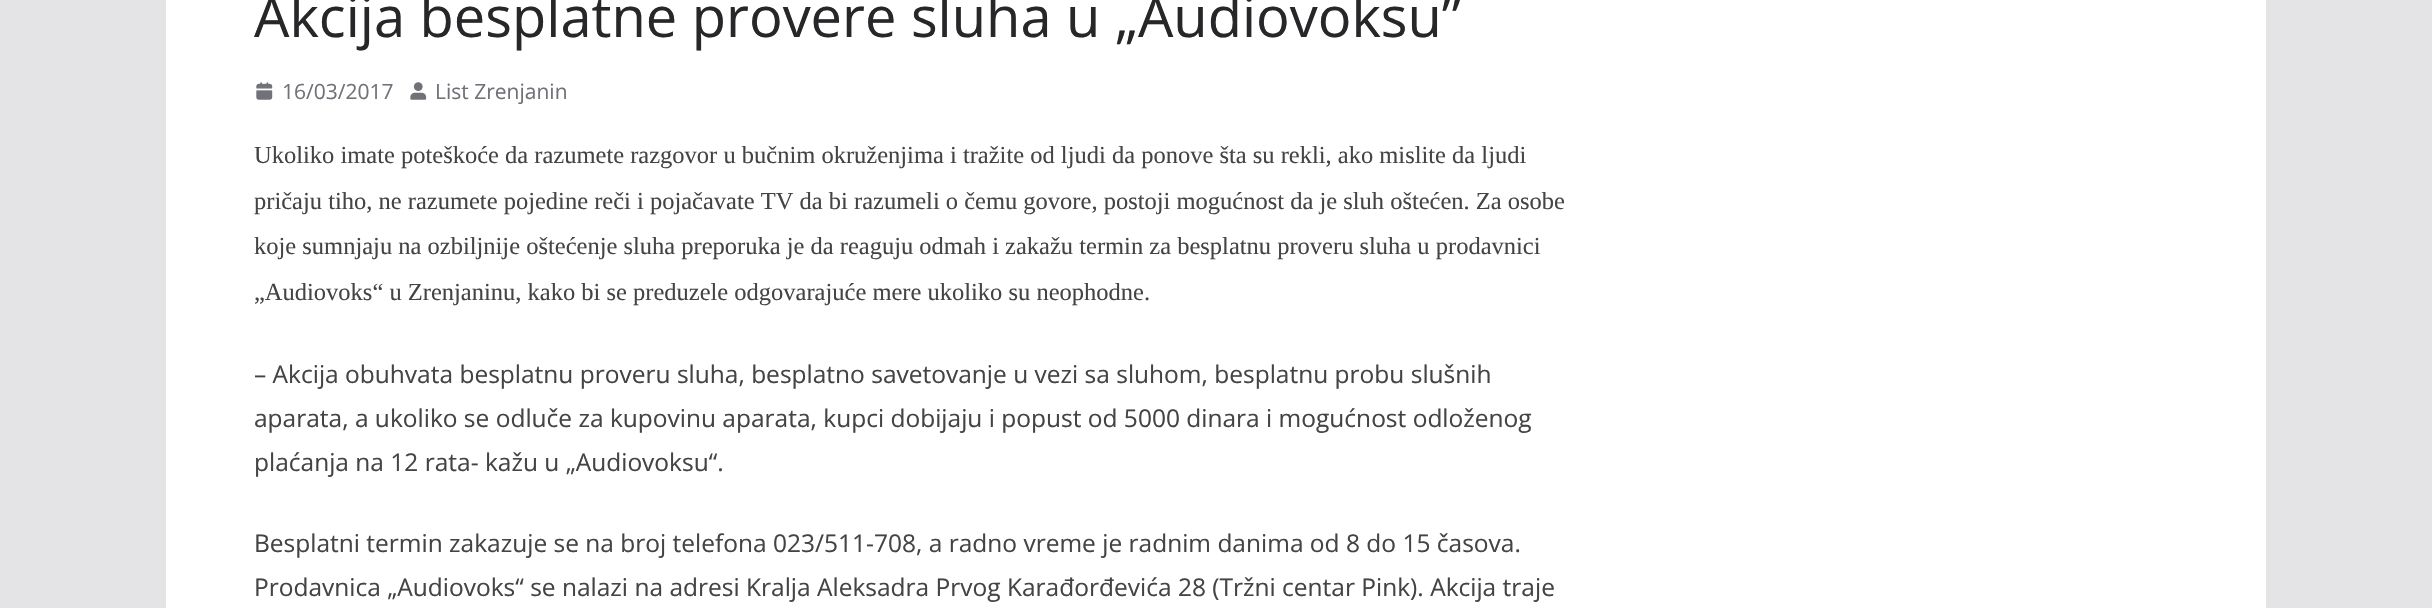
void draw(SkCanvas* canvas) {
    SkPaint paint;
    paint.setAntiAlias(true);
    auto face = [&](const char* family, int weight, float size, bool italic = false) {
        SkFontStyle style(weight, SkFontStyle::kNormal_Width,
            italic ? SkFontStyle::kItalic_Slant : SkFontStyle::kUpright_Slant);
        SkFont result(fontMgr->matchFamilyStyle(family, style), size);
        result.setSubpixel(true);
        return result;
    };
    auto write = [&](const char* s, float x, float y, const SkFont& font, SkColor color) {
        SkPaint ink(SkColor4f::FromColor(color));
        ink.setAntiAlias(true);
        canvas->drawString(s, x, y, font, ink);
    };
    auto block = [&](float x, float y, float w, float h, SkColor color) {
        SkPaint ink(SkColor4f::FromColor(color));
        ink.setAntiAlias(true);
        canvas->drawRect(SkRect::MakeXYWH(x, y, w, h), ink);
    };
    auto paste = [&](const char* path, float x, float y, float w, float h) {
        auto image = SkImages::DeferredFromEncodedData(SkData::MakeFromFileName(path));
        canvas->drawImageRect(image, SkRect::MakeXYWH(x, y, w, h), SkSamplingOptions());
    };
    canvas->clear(SkColorSetRGB(228, 228, 231));
    block(166, 0, 2100, 608, SK_ColorWHITE);
    auto kFont1 = face("Open Sans", 400, 56);
    write("Akcija besplatne provere sluha u „Audiovoksu”", 254, 37, kFont1, SkColorSetRGB(39, 39, 42));
    paste("pic1.png", 256, 82, 17, 18);
    auto kFont2 = face("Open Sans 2", 400, 21);
    write("16/03/2017", 282, 99, kFont2, SkColorSetRGB(113, 113, 122));
    paste("pic2.png", 410, 82, 17, 18);
    write("List Zrenjanin", 435, 99, kFont2, SkColorSetRGB(113, 113, 122));
    auto kFont3 = face("Liberation Serif", 400, 24.5f);
    write("Ukoliko imate poteškoće da razumete razgovor u bučnim okruženjima i tražite od ljudi da ponove šta su rekli, ako mislite da ljudi", 254, 163, kFont3, SkColorSetRGB(68, 68, 68));
    write("pričaju tiho, ne razumete pojedine reči i pojačavate TV da bi razumeli o čemu govore, postoji mogućnost da je sluh oštećen. Za osobe", 254, 209, kFont3, SkColorSetRGB(68, 68, 68));
    write("koje sumnjaju na ozbiljnije oštećenje sluha preporuka je da reaguju odmah i zakažu termin za besplatnu proveru sluha u prodavnici", 254, 254, kFont3, SkColorSetRGB(68, 68, 68));
    write("„Audiovoks“ u Zrenjaninu, kako bi se preduzele odgovarajuće mere ukoliko su neophodne.", 254, 300, kFont3, SkColorSetRGB(68, 68, 68));
    auto kFont4 = face("Open Sans 2", 400, 24.5f);
    write("– Akcija obuhvata besplatnu proveru sluha, besplatno savetovanje u vezi sa sluhom, besplatnu probu slušnih", 254, 383, kFont4, SkColorSetRGB(68, 68, 68));
    write("aparata, a ukoliko se odluče za kupovinu aparata, kupci dobijaju i popust od 5000 dinara i mogućnost odloženog", 254, 427, kFont4, SkColorSetRGB(68, 68, 68));
    write("plaćanja na 12 rata- kažu u „Audiovoksu“.", 254, 471, kFont4, SkColorSetRGB(68, 68, 68));
    write("Besplatni termin zakazuje se na broj telefona 023/511-708, a radno vreme je radnim danima od 8 do 15 časova.", 254, 552, kFont4, SkColorSetRGB(68, 68, 68));
    write("Prodavnica „Audiovoks“ se nalazi na adresi Kralja Aleksadra Prvog Karađorđevića 28 (Tržni centar Pink). Akcija traje", 254, 596, kFont4, SkColorSetRGB(68, 68, 68));
}
